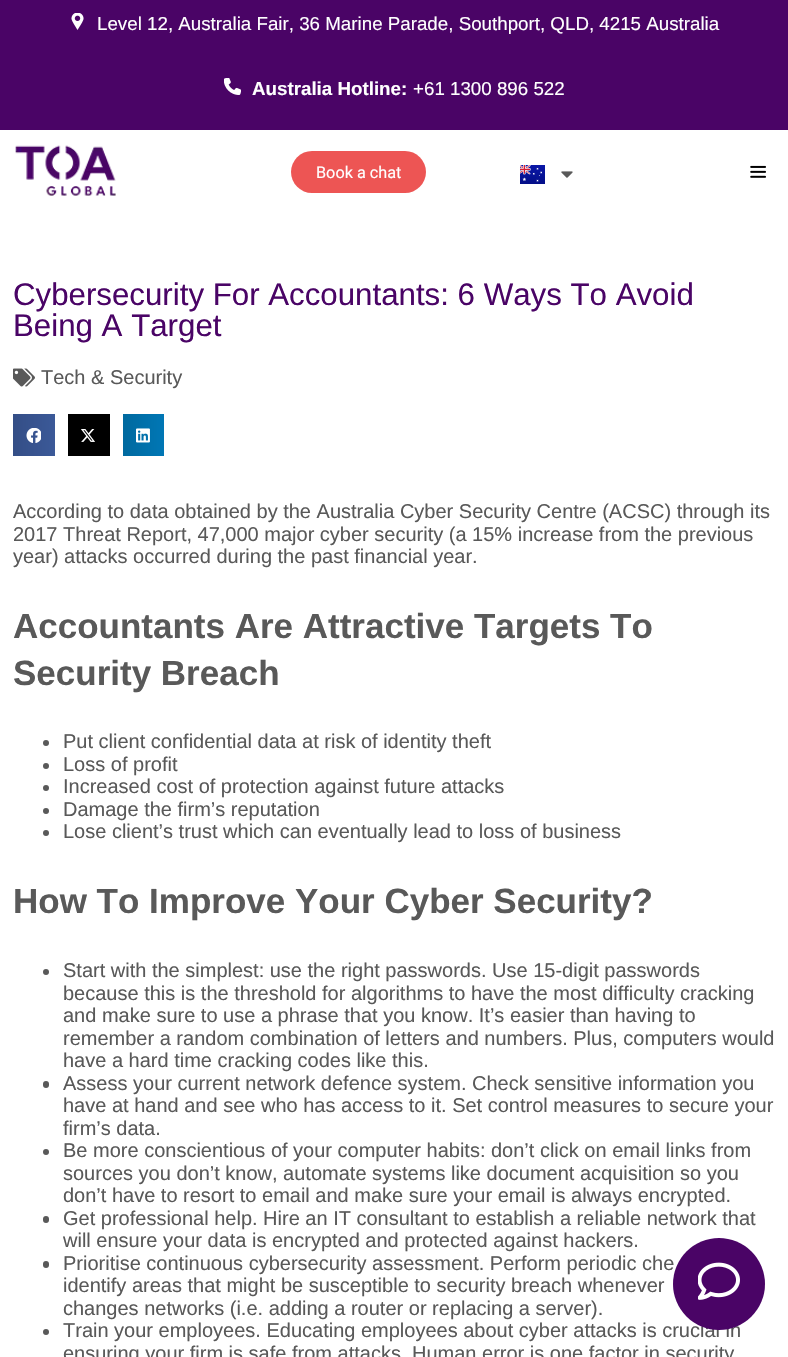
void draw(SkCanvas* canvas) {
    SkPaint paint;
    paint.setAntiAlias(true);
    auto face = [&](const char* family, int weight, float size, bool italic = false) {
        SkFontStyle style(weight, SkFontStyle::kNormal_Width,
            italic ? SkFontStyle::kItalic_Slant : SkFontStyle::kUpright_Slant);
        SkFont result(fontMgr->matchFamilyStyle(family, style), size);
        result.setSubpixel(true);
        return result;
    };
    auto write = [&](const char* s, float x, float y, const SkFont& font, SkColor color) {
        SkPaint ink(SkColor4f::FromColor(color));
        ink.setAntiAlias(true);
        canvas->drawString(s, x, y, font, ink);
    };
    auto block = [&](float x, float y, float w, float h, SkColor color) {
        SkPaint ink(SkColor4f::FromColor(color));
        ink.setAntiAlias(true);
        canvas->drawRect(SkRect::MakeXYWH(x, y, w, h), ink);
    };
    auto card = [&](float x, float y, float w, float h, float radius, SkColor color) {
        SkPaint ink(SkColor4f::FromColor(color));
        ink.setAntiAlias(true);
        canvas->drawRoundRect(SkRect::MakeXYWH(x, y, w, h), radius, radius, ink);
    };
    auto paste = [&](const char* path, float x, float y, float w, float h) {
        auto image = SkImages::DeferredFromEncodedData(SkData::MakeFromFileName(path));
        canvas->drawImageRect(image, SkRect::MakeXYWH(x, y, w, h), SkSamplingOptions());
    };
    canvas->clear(SK_ColorWHITE);
    block(0, 0, 788, 130, SkColorSetRGB(74, 4, 102));
    paste("pic1.png", 71, 13, 13, 17);
    auto kFont1 = face("Liberation Sans", 400, 18.75f);
    write("Level 12, Australia Fair, 36 Marine Parade, Southport, QLD, 4215 Australia", 97, 30, kFont1, SK_ColorWHITE);
    paste("pic2.png", 224, 78, 17, 17);
    auto kFont2 = face("Liberation Sans", 700, 18.75f);
    write("Australia Hotline:", 252, 95, kFont2, SK_ColorWHITE);
    write("+61 1300 896 522", 413, 95, kFont1, SK_ColorWHITE);
    paste("pic3.png", 15, 145, 101, 51);
    card(291, 151, 135, 42, 21, SkColorSetRGB(237, 85, 84));
    auto kFont3 = face("Roboto", 400, 16.25f);
    write("Book a chat", 316, 178, kFont3, SK_ColorWHITE);
    paste("pic4.png", 520, 165, 25, 19);
    paste("pic5.png", 561, 171, 12, 7);
    paste("pic6.png", 750, 165, 16, 13);
    auto kFont4 = face("Liberation Sans", 400, 31.25f);
    write("Cybersecurity For Accountants: 6 Ways To Avoid", 13, 305, kFont4, SkColorSetRGB(74, 4, 102));
    write("Being A Target", 13, 336, kFont4, SkColorSetRGB(74, 4, 102));
    paste("pic7.png", 13, 368, 22, 19);
    auto kFont5 = face("Liberation Sans", 400, 20);
    write("Tech & Security", 41, 384, kFont5, SkColorSetRGB(89, 89, 89));
    {
        const SkColor colors[] = {SkColorSetRGB(52, 78, 134), SkColorSetRGB(59, 89, 152)};
        const float stops[] = {0, 1};
        const SkPoint ends[] = {{13, 435}, {55, 435}};
        paint.setShader(SkGradientShader::MakeLinear(ends, colors, stops, 2, SkTileMode::kClamp));
        paint.setAlpha(255);
    }
    canvas->drawRect(SkRect::MakeXYWH(13, 414, 42, 42), paint);
    paste("pic8.png", 26, 428, 15, 15);
    block(68, 414, 42, 42, SK_ColorBLACK);
    paste("pic9.png", 81, 429, 14, 13);
    {
        const SkColor colors[] = {SkColorSetRGB(0, 105, 159), SkColorSetRGB(0, 119, 181)};
        const float stops[] = {0, 1};
        const SkPoint ends[] = {{123, 435}, {164, 435}};
        paint.setShader(SkGradientShader::MakeLinear(ends, colors, stops, 2, SkTileMode::kClamp));
        paint.setAlpha(255);
    }
    canvas->drawRect(SkRect::MakeXYWH(123, 414, 41, 42), paint);
    paste("pic10.png", 136, 428, 14, 15);
    write("According to data obtained by the Australia Cyber Security Centre (ACSC) through its", 13, 518, kFont5, SkColorSetRGB(89, 89, 89));
    write("2017 Threat Report, 47,000 major cyber security (a 15% increase from the previous", 13, 541, kFont5, SkColorSetRGB(89, 89, 89));
    write("year) attacks occurred during the past financial year.", 13, 563, kFont5, SkColorSetRGB(89, 89, 89));
    auto kFont6 = face("Liberation Sans", 700, 35);
    write("Accountants Are Attractive Targets To", 13, 638, kFont6, SkColorSetRGB(89, 89, 89));
    write("Security Breach", 13, 685, kFont6, SkColorSetRGB(89, 89, 89));
    paint.setShader(nullptr);
    paint.setColor(SkColorSetRGB(89, 89, 89));
    canvas->drawCircle(46, 743, 3, paint);
    write("Put client confidential data at risk of identity theft", 63, 748, kFont5, SkColorSetRGB(89, 89, 89));
    canvas->drawCircle(46, 766, 3, paint);
    write("Loss of profit", 63, 771, kFont5, SkColorSetRGB(89, 89, 89));
    canvas->drawCircle(46, 788, 3, paint);
    write("Increased cost of protection against future attacks", 63, 793, kFont5, SkColorSetRGB(89, 89, 89));
    canvas->drawCircle(46, 811, 3, paint);
    write("Damage the firm’s reputation", 63, 816, kFont5, SkColorSetRGB(89, 89, 89));
    canvas->drawCircle(46, 833, 3, paint);
    write("Lose client’s trust which can eventually lead to loss of business", 63, 838, kFont5, SkColorSetRGB(89, 89, 89));
    write("How To Improve Your Cyber Security?", 13, 913, kFont6, SkColorSetRGB(89, 89, 89));
    canvas->drawCircle(46, 972, 3, paint);
    write("Start with the simplest: use the right passwords. Use 15-digit passwords", 63, 977, kFont5, SkColorSetRGB(89, 89, 89));
    write("because this is the threshold for algorithms to have the most difficulty cracking", 63, 1000, kFont5, SkColorSetRGB(89, 89, 89));
    write("and make sure to use a phrase that you know. It’s easier than having to", 63, 1022, kFont5, SkColorSetRGB(89, 89, 89));
    write("remember a random combination of letters and numbers. Plus, computers would", 63, 1045, kFont5, SkColorSetRGB(89, 89, 89));
    write("have a hard time cracking codes like this.", 63, 1067, kFont5, SkColorSetRGB(89, 89, 89));
    card(43, 1081, 6, 7, 3, SkColorSetRGB(89, 89, 89));
    write("Assess your current network defence system. Check sensitive information you", 63, 1090, kFont5, SkColorSetRGB(89, 89, 89));
    write("have at hand and see who has access to it. Set control measures to secure your", 63, 1112, kFont5, SkColorSetRGB(89, 89, 89));
    write("firm’s data.", 63, 1135, kFont5, SkColorSetRGB(89, 89, 89));
    canvas->drawCircle(46, 1152, 3, paint);
    write("Be more conscientious of your computer habits: don’t click on email links from", 63, 1157, kFont5, SkColorSetRGB(89, 89, 89));
    write("sources you don’t know, automate systems like document acquisition so you", 63, 1180, kFont5, SkColorSetRGB(89, 89, 89));
    write("don’t have to resort to email and make sure your email is always encrypted.", 63, 1202, kFont5, SkColorSetRGB(89, 89, 89));
    card(43, 1216, 6, 7, 3, SkColorSetRGB(89, 89, 89));
    write("Get professional help. Hire an IT consultant to establish a reliable network that", 63, 1225, kFont5, SkColorSetRGB(89, 89, 89));
    write("will ensure your data is encrypted and protected against hackers.", 63, 1247, kFont5, SkColorSetRGB(89, 89, 89));
    card(43, 1261, 6, 7, 3, SkColorSetRGB(89, 89, 89));
    write("Prioritise continuous cybersecurity assessment. Perform periodic che", 63, 1270, kFont5, SkColorSetRGB(89, 89, 89));
    write("identify areas that might be susceptible to security breach whenever", 63, 1292, kFont5, SkColorSetRGB(89, 89, 89));
    write("changes networks (i.e. adding a router or replacing a server).", 63, 1315, kFont5, SkColorSetRGB(89, 89, 89));
    canvas->drawCircle(46, 1332, 3, paint);
    write("Train your employees. Educating employees about cyber attacks is crucial in", 63, 1337, kFont5, SkColorSetRGB(89, 89, 89));
    write("ensuring your firm is safe from attacks. Human error is one factor in security", 63, 1360, kFont5, SkColorSetRGB(89, 89, 89));
    paint.setColor(SkColorSetRGB(74, 4, 102));
    canvas->drawCircle(719, 1284, 46, paint);
    paste("pic11.png", 698, 1262, 42, 38);
}
